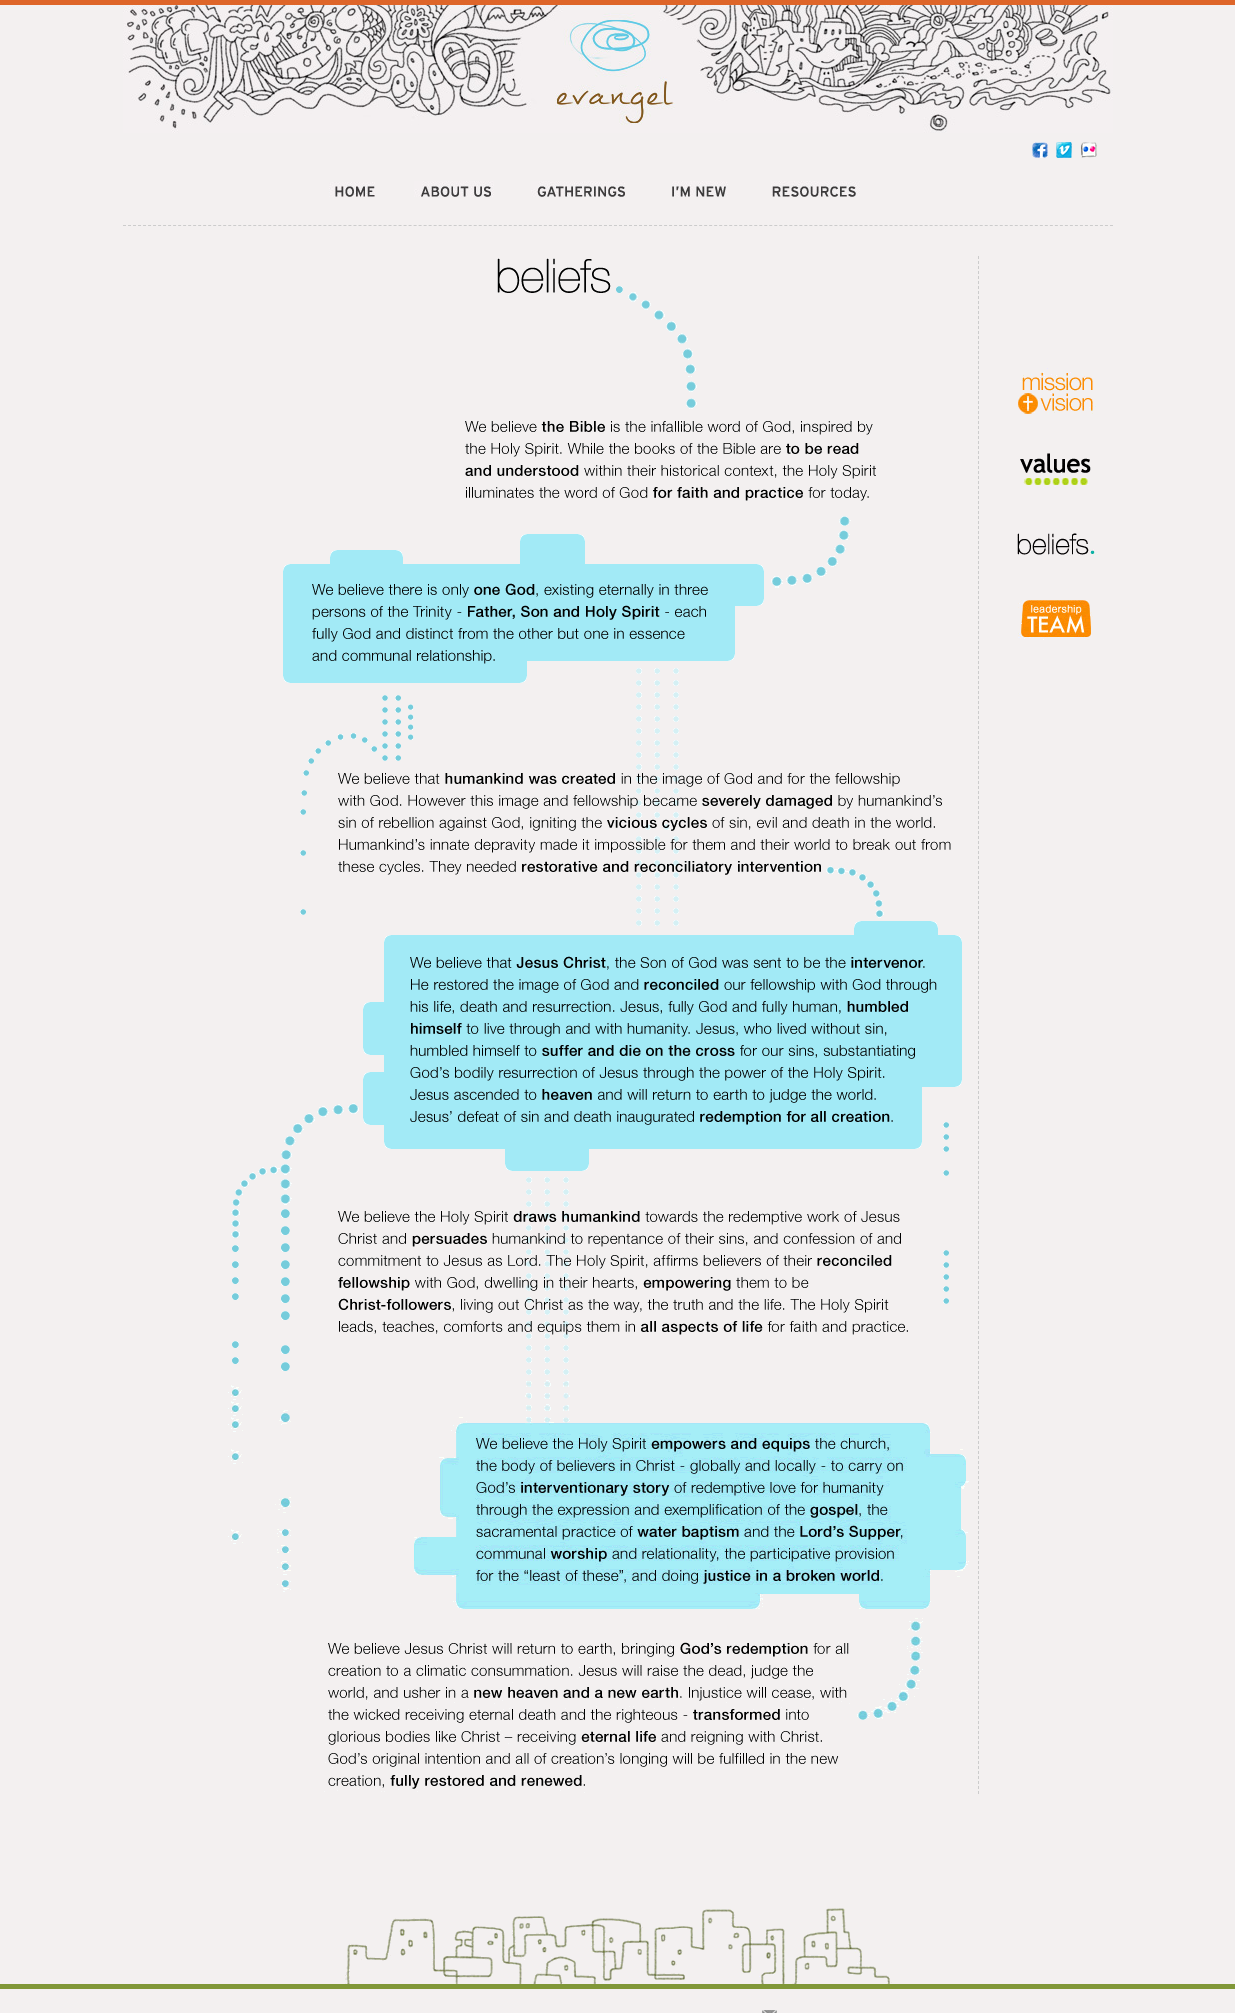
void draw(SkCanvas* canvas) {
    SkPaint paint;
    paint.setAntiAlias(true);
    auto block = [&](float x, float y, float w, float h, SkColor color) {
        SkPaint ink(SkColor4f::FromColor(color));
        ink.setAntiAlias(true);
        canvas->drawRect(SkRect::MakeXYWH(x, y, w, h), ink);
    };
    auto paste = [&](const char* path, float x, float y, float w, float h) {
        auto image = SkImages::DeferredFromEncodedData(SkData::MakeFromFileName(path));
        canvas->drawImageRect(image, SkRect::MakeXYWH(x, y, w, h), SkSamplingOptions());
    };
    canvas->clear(SkColorSetRGB(243, 240, 240));
    block(0, 0, 1235, 5, SkColorSetRGB(222, 101, 41));
    paint.setStyle(SkPaint::kStroke_Style);
    paint.setStrokeWidth(1);
    paint.setColor(SkColorSetRGB(204, 204, 204));
    paint.setPathEffect(SkDashPathEffect::Make({{3, 2.01f}}, 0));
    canvas->drawPath(SkPathBuilder().moveTo(123, 225.5f).lineTo(1113, 225.5f).detach(), paint);
    paint.setPathEffect(nullptr);
    paste("pic1.png", 123, 5, 990, 128);
    paste("pic2.png", 1032, 142, 16, 16);
    paste("pic3.png", 1056, 142, 16, 16);
    paste("pic4.png", 1081, 142, 16, 16);
    paste("pic5.png", 329, 182, 46, 15);
    paste("pic6.png", 414, 181, 80, 16);
    paste("pic7.png", 531, 181, 94, 16);
    paste("pic8.png", 672, 181, 56, 16);
    paste("pic9.png", 771, 181, 89, 16);
    paint.setPathEffect(SkDashPathEffect::Make({{3, 2}}, 0));
    canvas->drawPath(SkPathBuilder().moveTo(978.5f, 256).lineTo(978.5f, 1795).detach(), paint);
    paint.setPathEffect(nullptr);
    paste("pic10.png", 497, 258, 200, 151);
    paste("pic11.png", 283, 421, 593, 265);
    paste("pic12.png", 300, 692, 651, 226);
    paste("pic13.png", 232, 920, 730, 287);
    paste("pic14.png", 231, 1209, 718, 166);
    paste("pic15.png", 228, 1380, 741, 229);
    paste("pic16.png", 324, 1618, 599, 175);
    paste("pic17.png", 1018, 368, 78, 46);
    paste("pic18.png", 1020, 453, 71, 35);
    paste("pic19.png", 1017, 533, 81, 24);
    paste("pic20.png", 1018, 600, 75, 40);
    block(0, 1984, 1235, 5, SkColorSetRGB(128, 151, 56));
    paste("pic21.png", 345, 1908, 547, 76);
    paste("pic22.png", 762, 2010, 15, 3);
}
